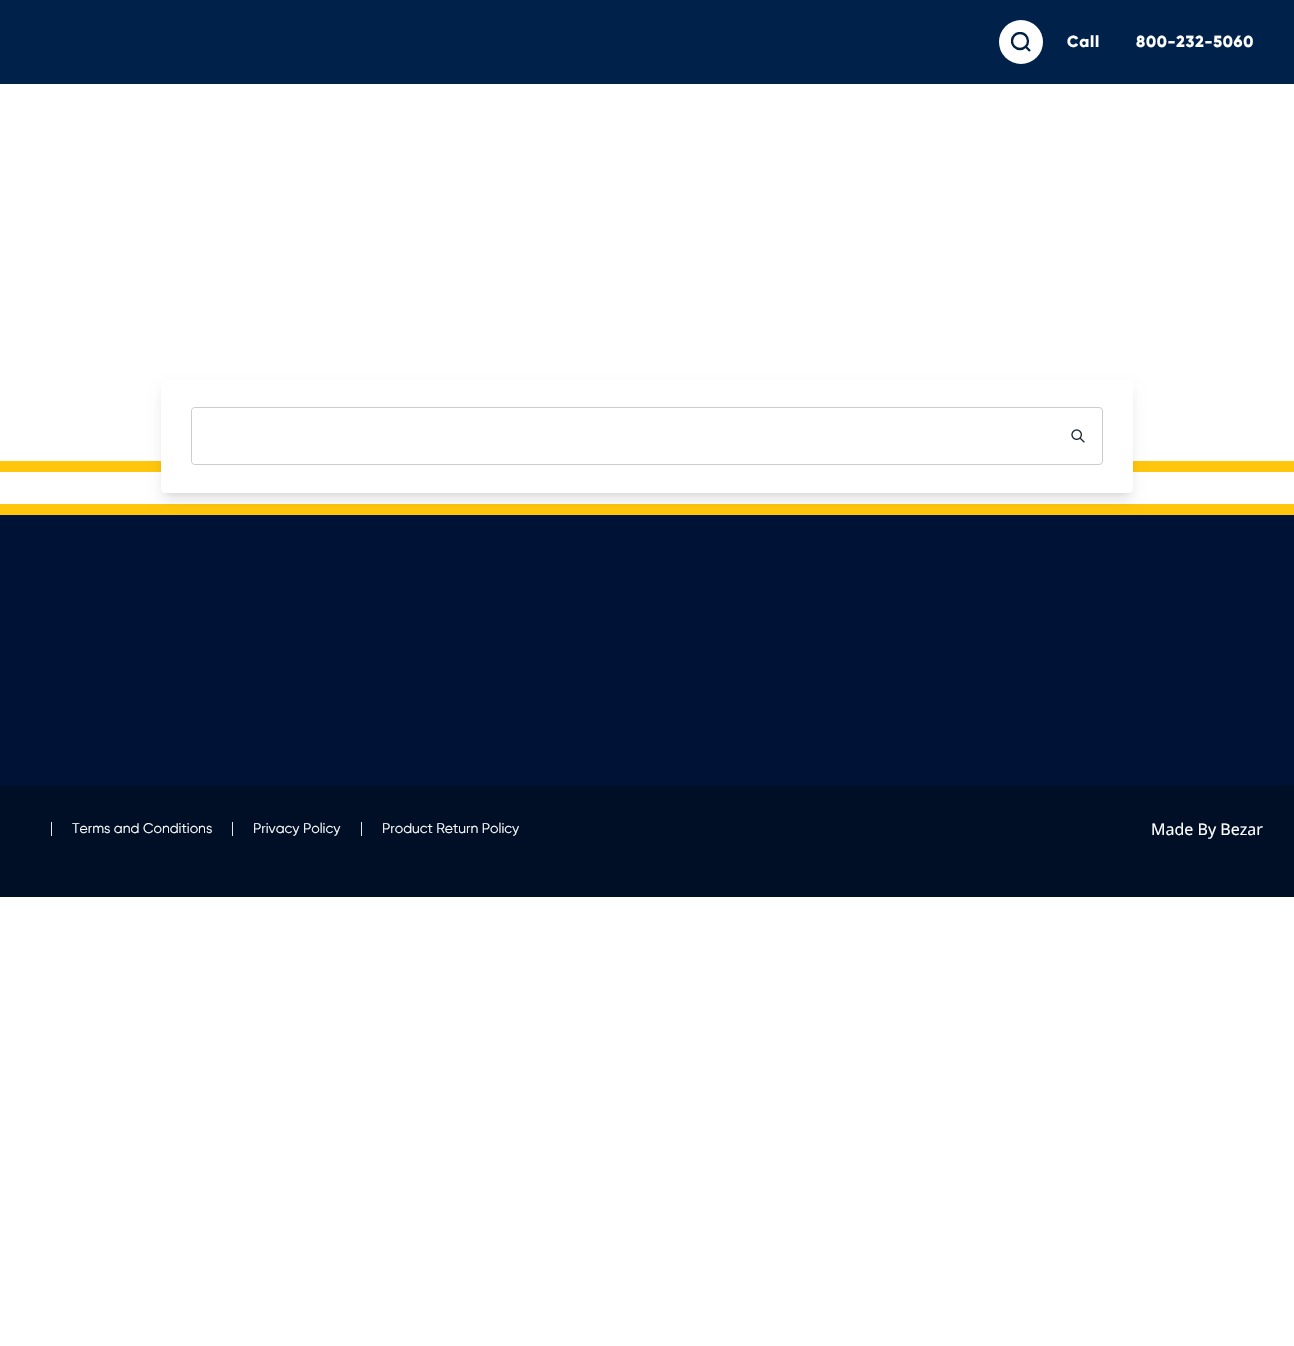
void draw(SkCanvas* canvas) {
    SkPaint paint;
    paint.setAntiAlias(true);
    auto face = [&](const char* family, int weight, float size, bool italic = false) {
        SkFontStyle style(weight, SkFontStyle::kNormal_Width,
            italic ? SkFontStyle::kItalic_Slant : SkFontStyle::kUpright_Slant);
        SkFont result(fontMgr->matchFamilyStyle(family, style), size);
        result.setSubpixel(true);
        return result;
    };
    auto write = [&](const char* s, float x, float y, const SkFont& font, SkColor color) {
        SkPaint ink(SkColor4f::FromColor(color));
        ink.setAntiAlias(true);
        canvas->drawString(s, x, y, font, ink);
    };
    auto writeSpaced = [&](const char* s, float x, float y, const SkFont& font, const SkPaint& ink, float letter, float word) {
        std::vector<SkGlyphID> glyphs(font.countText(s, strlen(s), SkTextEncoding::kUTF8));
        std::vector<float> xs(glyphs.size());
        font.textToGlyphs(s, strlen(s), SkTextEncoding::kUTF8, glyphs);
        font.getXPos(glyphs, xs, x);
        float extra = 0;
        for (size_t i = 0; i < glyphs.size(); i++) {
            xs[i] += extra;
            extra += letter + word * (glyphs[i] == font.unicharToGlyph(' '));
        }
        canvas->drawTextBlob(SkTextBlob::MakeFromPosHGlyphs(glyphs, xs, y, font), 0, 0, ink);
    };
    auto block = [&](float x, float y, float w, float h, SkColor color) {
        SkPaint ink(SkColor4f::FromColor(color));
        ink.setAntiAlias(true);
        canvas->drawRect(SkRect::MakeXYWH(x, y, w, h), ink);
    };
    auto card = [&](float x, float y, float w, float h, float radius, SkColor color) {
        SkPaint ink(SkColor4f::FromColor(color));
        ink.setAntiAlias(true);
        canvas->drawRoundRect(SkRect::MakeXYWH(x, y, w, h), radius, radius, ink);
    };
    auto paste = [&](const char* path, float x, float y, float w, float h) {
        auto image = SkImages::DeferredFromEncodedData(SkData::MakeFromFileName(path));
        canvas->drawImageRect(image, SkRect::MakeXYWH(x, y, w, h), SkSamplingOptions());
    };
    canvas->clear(SK_ColorWHITE);
    block(0, 0, 1294, 84, SkColorSetRGB(0, 33, 74));
    paint.setColor(SK_ColorWHITE);
    canvas->drawCircle(1021, 42, 22, paint);
    canvas->save();
    canvas->clipRect(SkRect::MakeXYWH(1011, 32, 20, 20));
    paint.setStyle(SkPaint::kStroke_Style);
    paint.setStrokeWidth(2.3f);
    paint.setColor(SkColorSetRGB(0, 31, 65));
    canvas->drawCircle(1020, 41, 8, paint);
    canvas->restore();
    canvas->drawPath(SkPathBuilder().moveTo(1026, 47).lineTo(1030, 51).detach(), paint);
    auto kFont1 = face("Gilroy", 800, 16);
    paint.setStyle(SkPaint::kFill_Style);
    paint.setColor(SK_ColorWHITE);
    writeSpaced("Call", 1067, 47, kFont1, paint, 0.75f, 0);
    writeSpaced("800-232-5060", 1136, 47, kFont1, paint, 0.75f, 0);
    block(0, 461, 1294, 11, SkColorSetRGB(255, 198, 12));
    paint.setColor(SkColorSetARGB(26, 0, 0, 0));
    paint.setMaskFilter(SkMaskFilter::MakeBlur(kNormal_SkBlurStyle, 3));
    canvas->drawRect(SkRect::MakeXYWH(165, 387, 964, 106), paint);
    paint.setMaskFilter(nullptr);
    block(0, 515, 1294, 270, SkColorSetRGB(0, 19, 54));
    block(0, 504, 1294, 11, SkColorSetRGB(255, 198, 12));
    paint.setMaskFilter(SkMaskFilter::MakeBlur(kNormal_SkBlurStyle, 7.5f));
    canvas->drawRoundRect(SkRect::MakeXYWH(164, 392, 966, 108), 1, 1, paint);
    paint.setMaskFilter(nullptr);
    card(161, 379, 972, 114, 4, SK_ColorWHITE);
    paint.setStyle(SkPaint::kStroke_Style);
    paint.setStrokeWidth(1);
    paint.setColor(SkColorSetRGB(204, 204, 204));
    canvas->drawRoundRect(SkRect::MakeXYWH(191.5f, 407.5f, 911, 57), 3.5f, 3.5f, paint);
    paint.setStyle(SkPaint::kFill_Style);
    paint.setColor(SK_ColorWHITE);
    canvas->drawPath(SkPathBuilder().moveTo(195, 408).lineTo(1054, 408).lineTo(1054, 464).lineTo(195, 464).cubicTo(193.5f, 464, 192, 462.5f, 192, 461).lineTo(192, 411).cubicTo(192, 409.5f, 193.5f, 408, 195, 408).close().detach(), paint);
    paste("pic1.png", 1071, 429, 14, 14);
    block(0, 785, 1294, 112, SkColorSetRGB(0, 14, 38));
    block(51, 822, 1, 14, SkColorSetRGB(229, 231, 235));
    auto kFont2 = face("Gilroy", 400, 14);
    write("Terms and Conditions", 72, 833, kFont2, SK_ColorWHITE);
    block(232, 822, 1, 14, SkColorSetRGB(229, 231, 235));
    write("Privacy Policy", 253, 833, kFont2, SK_ColorWHITE);
    block(361, 822, 1, 14, SkColorSetRGB(229, 231, 235));
    write("Product Return Policy", 382, 833, kFont2, SK_ColorWHITE);
    auto kFont3 = face("Noto Sans", 400, 16);
    write("Made By Bezar", 1151, 835, kFont3, SK_ColorWHITE);
}
